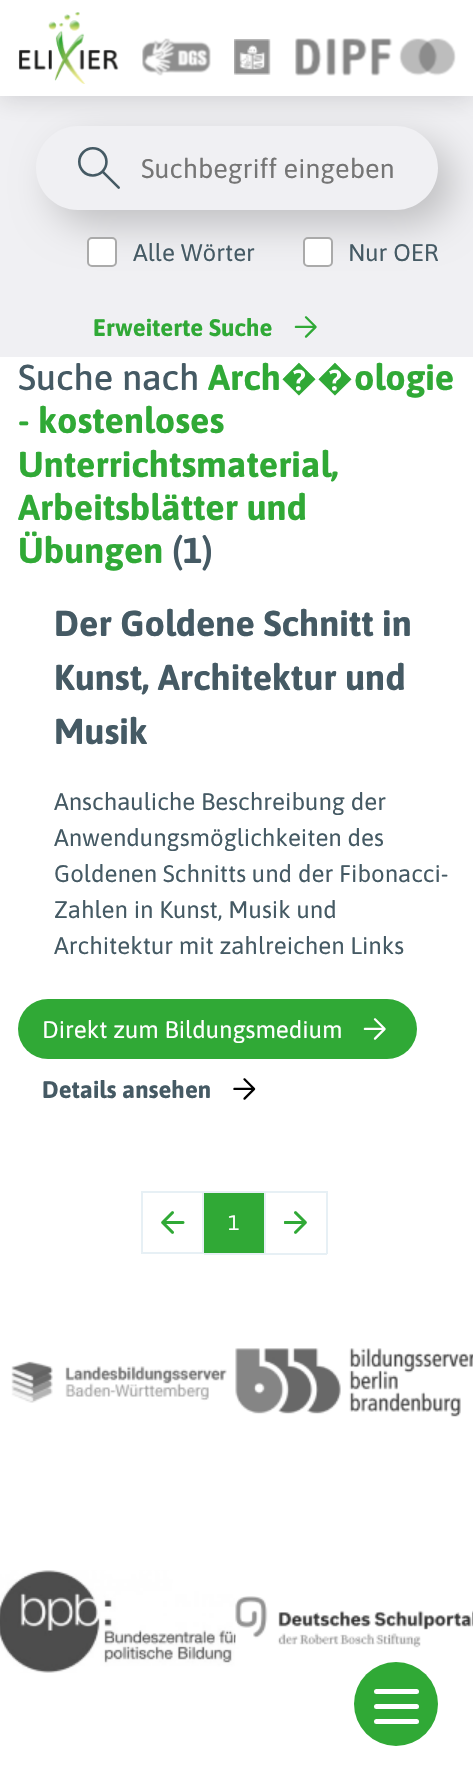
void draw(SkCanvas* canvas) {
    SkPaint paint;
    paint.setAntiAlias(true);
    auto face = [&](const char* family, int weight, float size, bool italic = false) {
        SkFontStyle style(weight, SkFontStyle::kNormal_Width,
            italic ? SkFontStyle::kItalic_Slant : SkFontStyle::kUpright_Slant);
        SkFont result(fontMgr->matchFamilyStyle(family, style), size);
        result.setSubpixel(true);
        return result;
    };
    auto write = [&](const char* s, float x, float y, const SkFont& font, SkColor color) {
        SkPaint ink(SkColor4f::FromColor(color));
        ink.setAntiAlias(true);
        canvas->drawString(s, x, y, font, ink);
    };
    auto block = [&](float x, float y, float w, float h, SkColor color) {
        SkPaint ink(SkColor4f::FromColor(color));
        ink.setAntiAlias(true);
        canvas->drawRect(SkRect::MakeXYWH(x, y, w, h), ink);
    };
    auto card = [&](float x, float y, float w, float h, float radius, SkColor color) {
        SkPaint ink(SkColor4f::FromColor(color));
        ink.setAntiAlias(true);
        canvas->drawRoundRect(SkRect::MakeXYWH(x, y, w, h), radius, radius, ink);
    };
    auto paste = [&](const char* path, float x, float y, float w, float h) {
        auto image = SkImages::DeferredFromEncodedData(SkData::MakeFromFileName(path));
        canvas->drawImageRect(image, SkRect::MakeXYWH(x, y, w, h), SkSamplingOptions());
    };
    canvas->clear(SK_ColorWHITE);
    block(0, 96, 473, 261, SkColorSetRGB(240, 240, 243));
    paint.setColor(SkColorSetARGB(41, 18, 18, 18));
    paint.setMaskFilter(SkMaskFilter::MakeBlur(kNormal_SkBlurStyle, 12));
    canvas->drawRect(SkRect::MakeXYWH(0, 2, 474, 96), paint);
    paint.setMaskFilter(nullptr);
    canvas->save();
    canvas->clipPath(SkPathBuilder(SkPathFillType::kEvenOdd).moveTo(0, 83).lineTo(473, 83).lineTo(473, 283).lineTo(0, 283).close().moveTo(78, 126).lineTo(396, 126).cubicTo(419, 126, 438, 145, 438, 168).cubicTo(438, 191, 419, 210, 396, 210).lineTo(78, 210).cubicTo(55, 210, 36, 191, 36, 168).cubicTo(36, 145, 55, 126, 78, 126).close().detach(), true);
    paint.setColor(SkColorSetRGB(192, 192, 194));
    paint.setMaskFilter(SkMaskFilter::MakeBlur(kNormal_SkBlurStyle, 19));
    canvas->drawRoundRect(SkRect::MakeXYWH(51, 141, 402, 84), 42, 42, paint);
    paint.setMaskFilter(nullptr);
    canvas->restore();
    block(0, 0, 473, 96, SK_ColorWHITE);
    paste("pic1.png", 18, 12, 101, 72);
    paste("pic2.png", 142, 38, 69, 38);
    paste("pic3.png", 234, 39, 37, 36);
    paste("pic4.png", 295, 38, 161, 38);
    paste("pic5.png", 78, 147, 42, 42);
    auto kFont1 = face("Asap", 400, 27);
    write("Suchbegriff eingeben", 141, 178, kFont1, SkColorSetRGB(117, 117, 117));
    paint.setColor(SK_ColorWHITE);
    canvas->drawRoundRect(SkRect::MakeXYWH(88, 238, 28, 28), 4, 4, paint);
    paint.setStyle(SkPaint::kStroke_Style);
    paint.setStrokeWidth(2);
    paint.setColor(SkColorSetRGB(170, 170, 170));
    canvas->drawRoundRect(SkRect::MakeXYWH(88, 238, 28, 28), 4, 4, paint);
    auto kFont2 = face("Asap", 400, 24);
    write("Alle Wörter", 133, 261, kFont2, SkColorSetRGB(69, 90, 100));
    paint.setStyle(SkPaint::kFill_Style);
    paint.setColor(SK_ColorWHITE);
    canvas->drawRoundRect(SkRect::MakeXYWH(304, 238, 28, 28), 4, 4, paint);
    paint.setStyle(SkPaint::kStroke_Style);
    paint.setColor(SkColorSetRGB(170, 170, 170));
    canvas->drawRoundRect(SkRect::MakeXYWH(304, 238, 28, 28), 4, 4, paint);
    write("Nur OER", 348, 261, kFont2, SkColorSetRGB(69, 90, 100));
    auto kFont3 = face("Asap", 700, 24);
    write("Erweiterte Suche", 93, 336, kFont3, SkColorSetRGB(48, 169, 54));
    paste("pic6.png", 294, 316, 23, 22);
    auto kFont4 = face("Asap", 500, 36);
    write("Suche nach", 18, 390, kFont4, SkColorSetRGB(69, 90, 100));
    auto kFont5 = face("Asap", 700, 36);
    write("Arch", 208, 390, kFont5, SkColorSetRGB(48, 169, 54));
    auto kFont6 = face("Noto Sans", 700, 36);
    write("��", 281, 390, kFont6, SkColorSetRGB(48, 169, 54));
    write("ologie", 354, 390, kFont5, SkColorSetRGB(48, 169, 54));
    write("- kostenloses", 18, 433, kFont5, SkColorSetRGB(48, 169, 54));
    write("Unterrichtsmaterial,", 18, 477, kFont5, SkColorSetRGB(48, 169, 54));
    write("Arbeitsblätter und", 18, 520, kFont5, SkColorSetRGB(48, 169, 54));
    write("Übungen", 18, 563, kFont5, SkColorSetRGB(48, 169, 54));
    write("(1)", 172, 563, kFont5, SkColorSetRGB(69, 90, 100));
    write("Der Goldene Schnitt in", 54, 636, kFont5, SkColorSetRGB(69, 90, 100));
    write("Kunst, Architektur und", 54, 690, kFont5, SkColorSetRGB(69, 90, 100));
    write("Musik", 54, 744, kFont5, SkColorSetRGB(69, 90, 100));
    write("Anschauliche Beschreibung der", 54, 810, kFont2, SkColorSetRGB(69, 90, 100));
    write("Anwendungsmöglichkeiten des", 54, 846, kFont2, SkColorSetRGB(69, 90, 100));
    write("Goldenen Schnitts und der Fibonacci-", 54, 882, kFont2, SkColorSetRGB(69, 90, 100));
    write("Zahlen in Kunst, Musik und", 54, 918, kFont2, SkColorSetRGB(69, 90, 100));
    write("Architektur mit zahlreichen Links", 54, 954, kFont2, SkColorSetRGB(69, 90, 100));
    card(18, 999, 399, 60, 30, SkColorSetRGB(48, 169, 54));
    write("Direkt zum Bildungsmedium", 42, 1038, kFont2, SK_ColorWHITE);
    paste("pic7.png", 363, 1018, 23, 22);
    write("Details ansehen", 42, 1098, kFont3, SkColorSetRGB(69, 90, 100));
    paste("pic8.png", 233, 1078, 23, 22);
    paint.setColor(SkColorSetRGB(231, 240, 245));
    canvas->drawRect(SkRect::MakeXYWH(142, 1192, 61, 61), paint);
    paste("pic9.png", 161, 1211, 24, 23);
    block(204, 1191, 123, 2, SkColorSetRGB(231, 240, 245));
    block(264, 1191, 2, 63, SkColorSetRGB(231, 240, 245));
    block(204, 1253, 62, 2, SkColorSetRGB(231, 240, 245));
    block(204, 1193, 60, 60, SkColorSetRGB(48, 169, 54));
    auto kFont7 = face("Asap", 400, 21);
    write("1", 228, 1230, kFont7, SK_ColorWHITE);
    block(326, 1191, 2, 63, SkColorSetRGB(231, 240, 245));
    block(266, 1253, 61, 2, SkColorSetRGB(231, 240, 245));
    paste("pic10.png", 284, 1211, 23, 23);
    paste("pic11.png", 11, 1361, 216, 42);
    paste("pic12.png", 235, 1348, 238, 69);
    paste("pic13.png", 0, 1570, 239, 103);
    paste("pic14.png", 235, 1596, 238, 52);
    paint.setStyle(SkPaint::kFill_Style);
    paint.setColor(SkColorSetRGB(48, 169, 54));
    canvas->drawCircle(396, 1704, 42, paint);
    card(374, 1704, 45, 5, 2.5f, SK_ColorWHITE);
    card(374, 1689, 45, 5, 2.5f, SK_ColorWHITE);
    card(374, 1719, 45, 5, 2.5f, SK_ColorWHITE);
}
